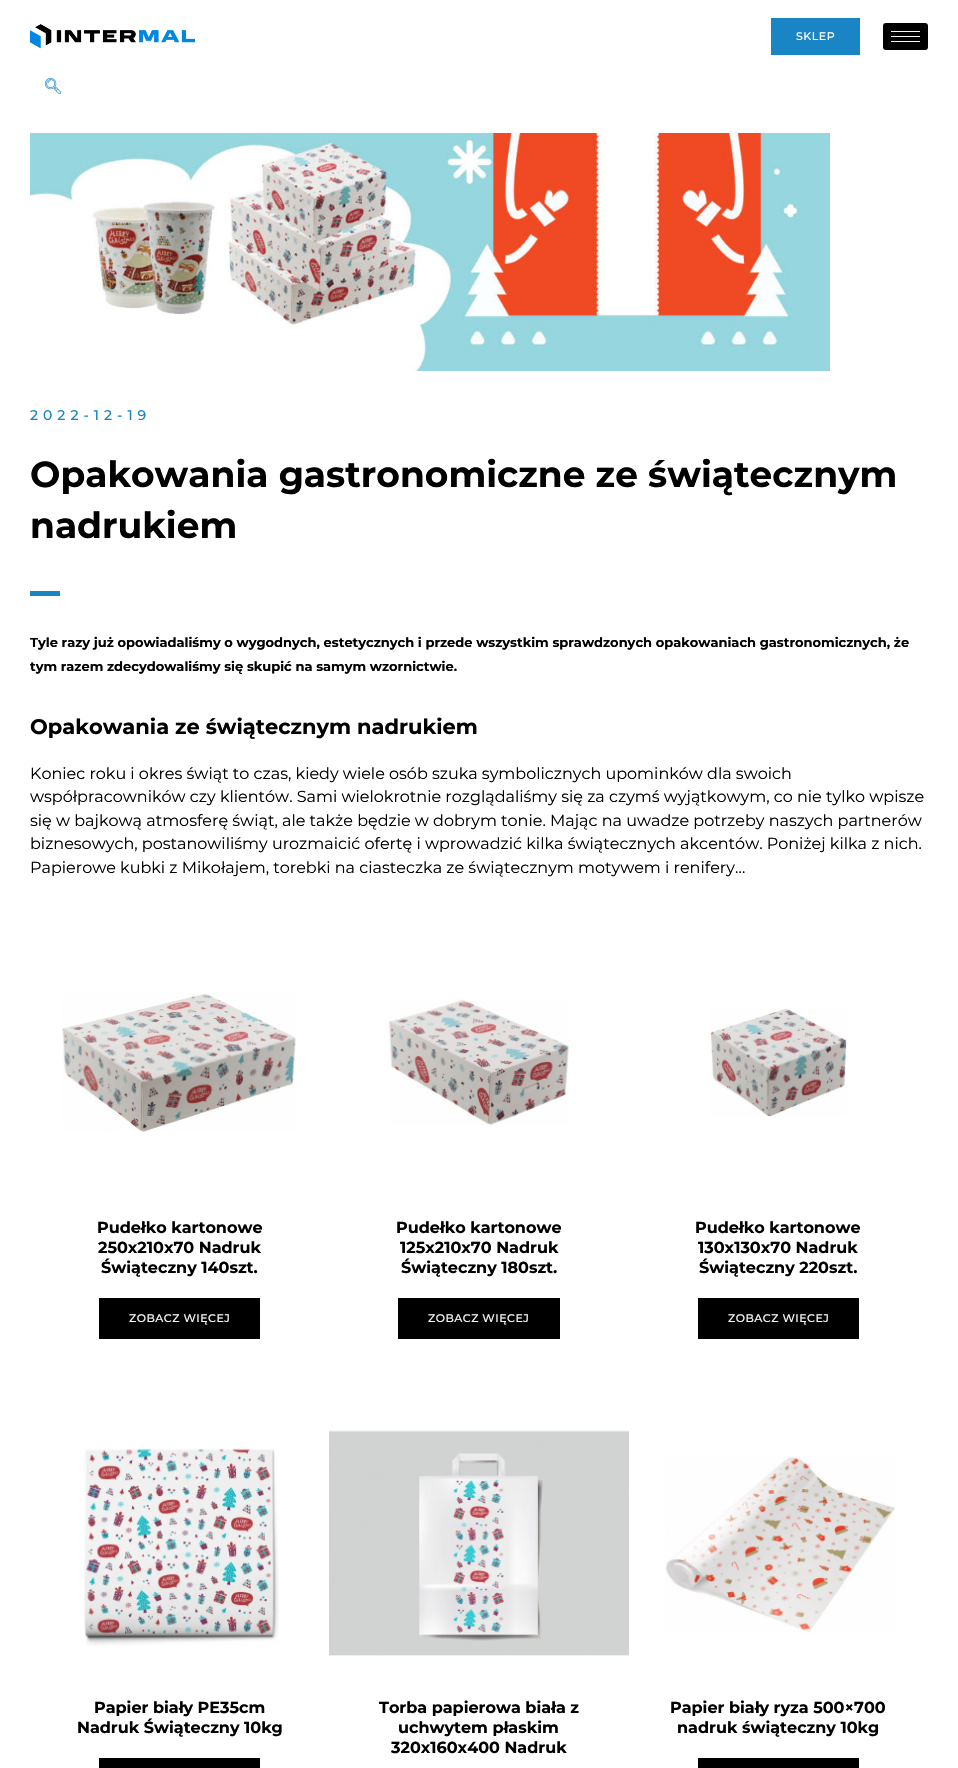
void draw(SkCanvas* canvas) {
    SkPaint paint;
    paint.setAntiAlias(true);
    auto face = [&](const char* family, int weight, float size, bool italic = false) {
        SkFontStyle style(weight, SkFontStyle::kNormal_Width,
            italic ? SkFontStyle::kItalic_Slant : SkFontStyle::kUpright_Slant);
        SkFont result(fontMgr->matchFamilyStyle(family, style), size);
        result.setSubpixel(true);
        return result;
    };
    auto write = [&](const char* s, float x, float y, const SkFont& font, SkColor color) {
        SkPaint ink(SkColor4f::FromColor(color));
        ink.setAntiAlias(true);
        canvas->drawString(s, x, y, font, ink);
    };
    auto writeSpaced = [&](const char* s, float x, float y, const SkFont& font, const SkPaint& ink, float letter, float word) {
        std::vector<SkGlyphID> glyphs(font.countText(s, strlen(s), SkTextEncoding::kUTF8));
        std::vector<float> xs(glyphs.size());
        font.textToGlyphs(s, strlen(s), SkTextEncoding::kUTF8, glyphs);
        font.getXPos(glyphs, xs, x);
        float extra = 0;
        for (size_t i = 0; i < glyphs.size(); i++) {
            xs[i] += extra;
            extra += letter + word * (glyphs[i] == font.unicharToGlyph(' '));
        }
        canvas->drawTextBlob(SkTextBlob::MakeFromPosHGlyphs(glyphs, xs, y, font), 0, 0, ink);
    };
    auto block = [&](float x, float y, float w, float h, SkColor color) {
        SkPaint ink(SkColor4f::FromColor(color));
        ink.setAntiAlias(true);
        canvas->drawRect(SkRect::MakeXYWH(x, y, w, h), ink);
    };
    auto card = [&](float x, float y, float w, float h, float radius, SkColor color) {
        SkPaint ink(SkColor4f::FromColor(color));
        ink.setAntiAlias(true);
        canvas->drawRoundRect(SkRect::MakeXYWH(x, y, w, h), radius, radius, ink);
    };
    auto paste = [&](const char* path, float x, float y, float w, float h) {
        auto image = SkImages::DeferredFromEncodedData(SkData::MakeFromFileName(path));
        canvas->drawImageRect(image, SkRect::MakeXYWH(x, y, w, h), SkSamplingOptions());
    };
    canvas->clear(SK_ColorWHITE);
    paste("pic1.png", 30, 24, 165, 25);
    block(771, 18, 89, 37, SkColorSetRGB(25, 133, 196));
    auto kFont1 = face("Montserrat", 500, 11);
    paint.setColor(SK_ColorWHITE);
    writeSpaced("SKLEP", 796, 40, kFont1, paint, 0.5f, 0);
    card(883, 23, 45, 27, 3, SK_ColorBLACK);
    block(891, 31, 29, 1, SkColorSetRGB(246, 246, 248));
    block(891, 36, 29, 1, SkColorSetRGB(246, 246, 248));
    block(891, 41, 29, 1, SkColorSetRGB(246, 246, 248));
    paste("pic2.png", 45, 78, 16, 16);
    paste("pic3.png", 30, 133, 800, 238);
    auto kFont2 = face("Montserrat", 500, 14);
    paint.setColor(SkColorSetRGB(25, 133, 196));
    writeSpaced("2022-12-19", 30, 420, kFont2, paint, 5, 0);
    auto kFont3 = face("Montserrat", 700, 36);
    write("Opakowania gastronomiczne ze świątecznym", 30, 487, kFont3, SK_ColorBLACK);
    write("nadrukiem", 30, 538, kFont3, SK_ColorBLACK);
    block(30, 591, 30, 5, SkColorSetRGB(25, 133, 196));
    auto kFont4 = face("Montserrat", 700, 13);
    write("Tyle razy już opowiadaliśmy o wygodnych, estetycznych i przede wszystkim sprawdzonych opakowaniach gastronomicznych, że", 30, 647, kFont4, SK_ColorBLACK);
    write("tym razem zdecydowaliśmy się skupić na samym wzornictwie.", 30, 671, kFont4, SK_ColorBLACK);
    auto kFont5 = face("Montserrat", 700, 21);
    write("Opakowania ze świątecznym nadrukiem", 30, 734, kFont5, SK_ColorBLACK);
    auto kFont6 = face("Montserrat", 400, 16);
    write("Koniec roku i okres świąt to czas, kiedy wiele osób szuka symbolicznych upominków dla swoich", 30, 779, kFont6, SK_ColorBLACK);
    write("współpracowników czy klientów. Sami wielokrotnie rozglądaliśmy się za czymś wyjątkowym, co nie tylko wpisze", 30, 802, kFont6, SK_ColorBLACK);
    write("się w bajkową atmosferę świąt, ale także będzie w dobrym tonie. Mając na uwadze potrzeby naszych partnerów", 30, 826, kFont6, SK_ColorBLACK);
    write("biznesowych, postanowiliśmy urozmaicić ofertę i wprowadzić kilka świątecznych akcentów. Poniżej kilka z nich.", 30, 849, kFont6, SK_ColorBLACK);
    write("Papierowe kubki z Mikołajem, torebki na ciasteczka ze świątecznym motywem i renifery…", 30, 873, kFont6, SK_ColorBLACK);
    paste("pic4.png", 62, 993, 234, 139);
    auto kFont7 = face("Montserrat", 700, 16);
    write("Pudełko kartonowe", 97, 1233, kFont7, SK_ColorBLACK);
    write("250x210x70 Nadruk", 98, 1253, kFont7, SK_ColorBLACK);
    write("Świąteczny 140szt.", 101, 1273, kFont7, SK_ColorBLACK);
    block(99, 1298, 161, 41, SK_ColorBLACK);
    paint.setColor(SkColorSetRGB(246, 246, 248));
    writeSpaced("ZOBACZ WIĘCEJ", 129, 1322, kFont1, paint, 0.5f, 0);
    paste("pic5.png", 388, 999, 181, 126);
    write("Pudełko kartonowe", 396, 1233, kFont7, SK_ColorBLACK);
    write("125x210x70 Nadruk", 400, 1253, kFont7, SK_ColorBLACK);
    write("Świąteczny 180szt.", 401, 1273, kFont7, SK_ColorBLACK);
    block(398, 1298, 162, 41, SK_ColorBLACK);
    writeSpaced("ZOBACZ WIĘCEJ", 428, 1322, kFont1, paint, 0.5f, 0);
    paste("pic6.png", 710, 1008, 137, 109);
    write("Pudełko kartonowe", 695, 1233, kFont7, SK_ColorBLACK);
    write("130x130x70 Nadruk", 698, 1253, kFont7, SK_ColorBLACK);
    write("Świąteczny 220szt.", 699, 1273, kFont7, SK_ColorBLACK);
    block(698, 1298, 161, 41, SK_ColorBLACK);
    writeSpaced("ZOBACZ WIĘCEJ", 728, 1322, kFont1, paint, 0.5f, 0);
    paste("pic7.png", 84, 1448, 195, 198);
    write("Papier biały PE35cm", 94, 1713, kFont7, SK_ColorBLACK);
    write("Nadruk Świąteczny 10kg", 77, 1733, kFont7, SK_ColorBLACK);
    block(99, 1758, 161, 10, SK_ColorBLACK);
    paste("pic8.png", 329, 1430, 300, 226);
    write("Torba papierowa biała z", 379, 1713, kFont7, SK_ColorBLACK);
    write("uchwytem płaskim", 398, 1733, kFont7, SK_ColorBLACK);
    write("320x160x400 Nadruk", 391, 1753, kFont7, SK_ColorBLACK);
    paste("pic9.png", 665, 1457, 231, 176);
    write("Papier biały ryza 500×700", 670, 1713, kFont7, SK_ColorBLACK);
    write("nadruk świąteczny 10kg", 677, 1733, kFont7, SK_ColorBLACK);
    block(698, 1758, 161, 10, SK_ColorBLACK);
}
